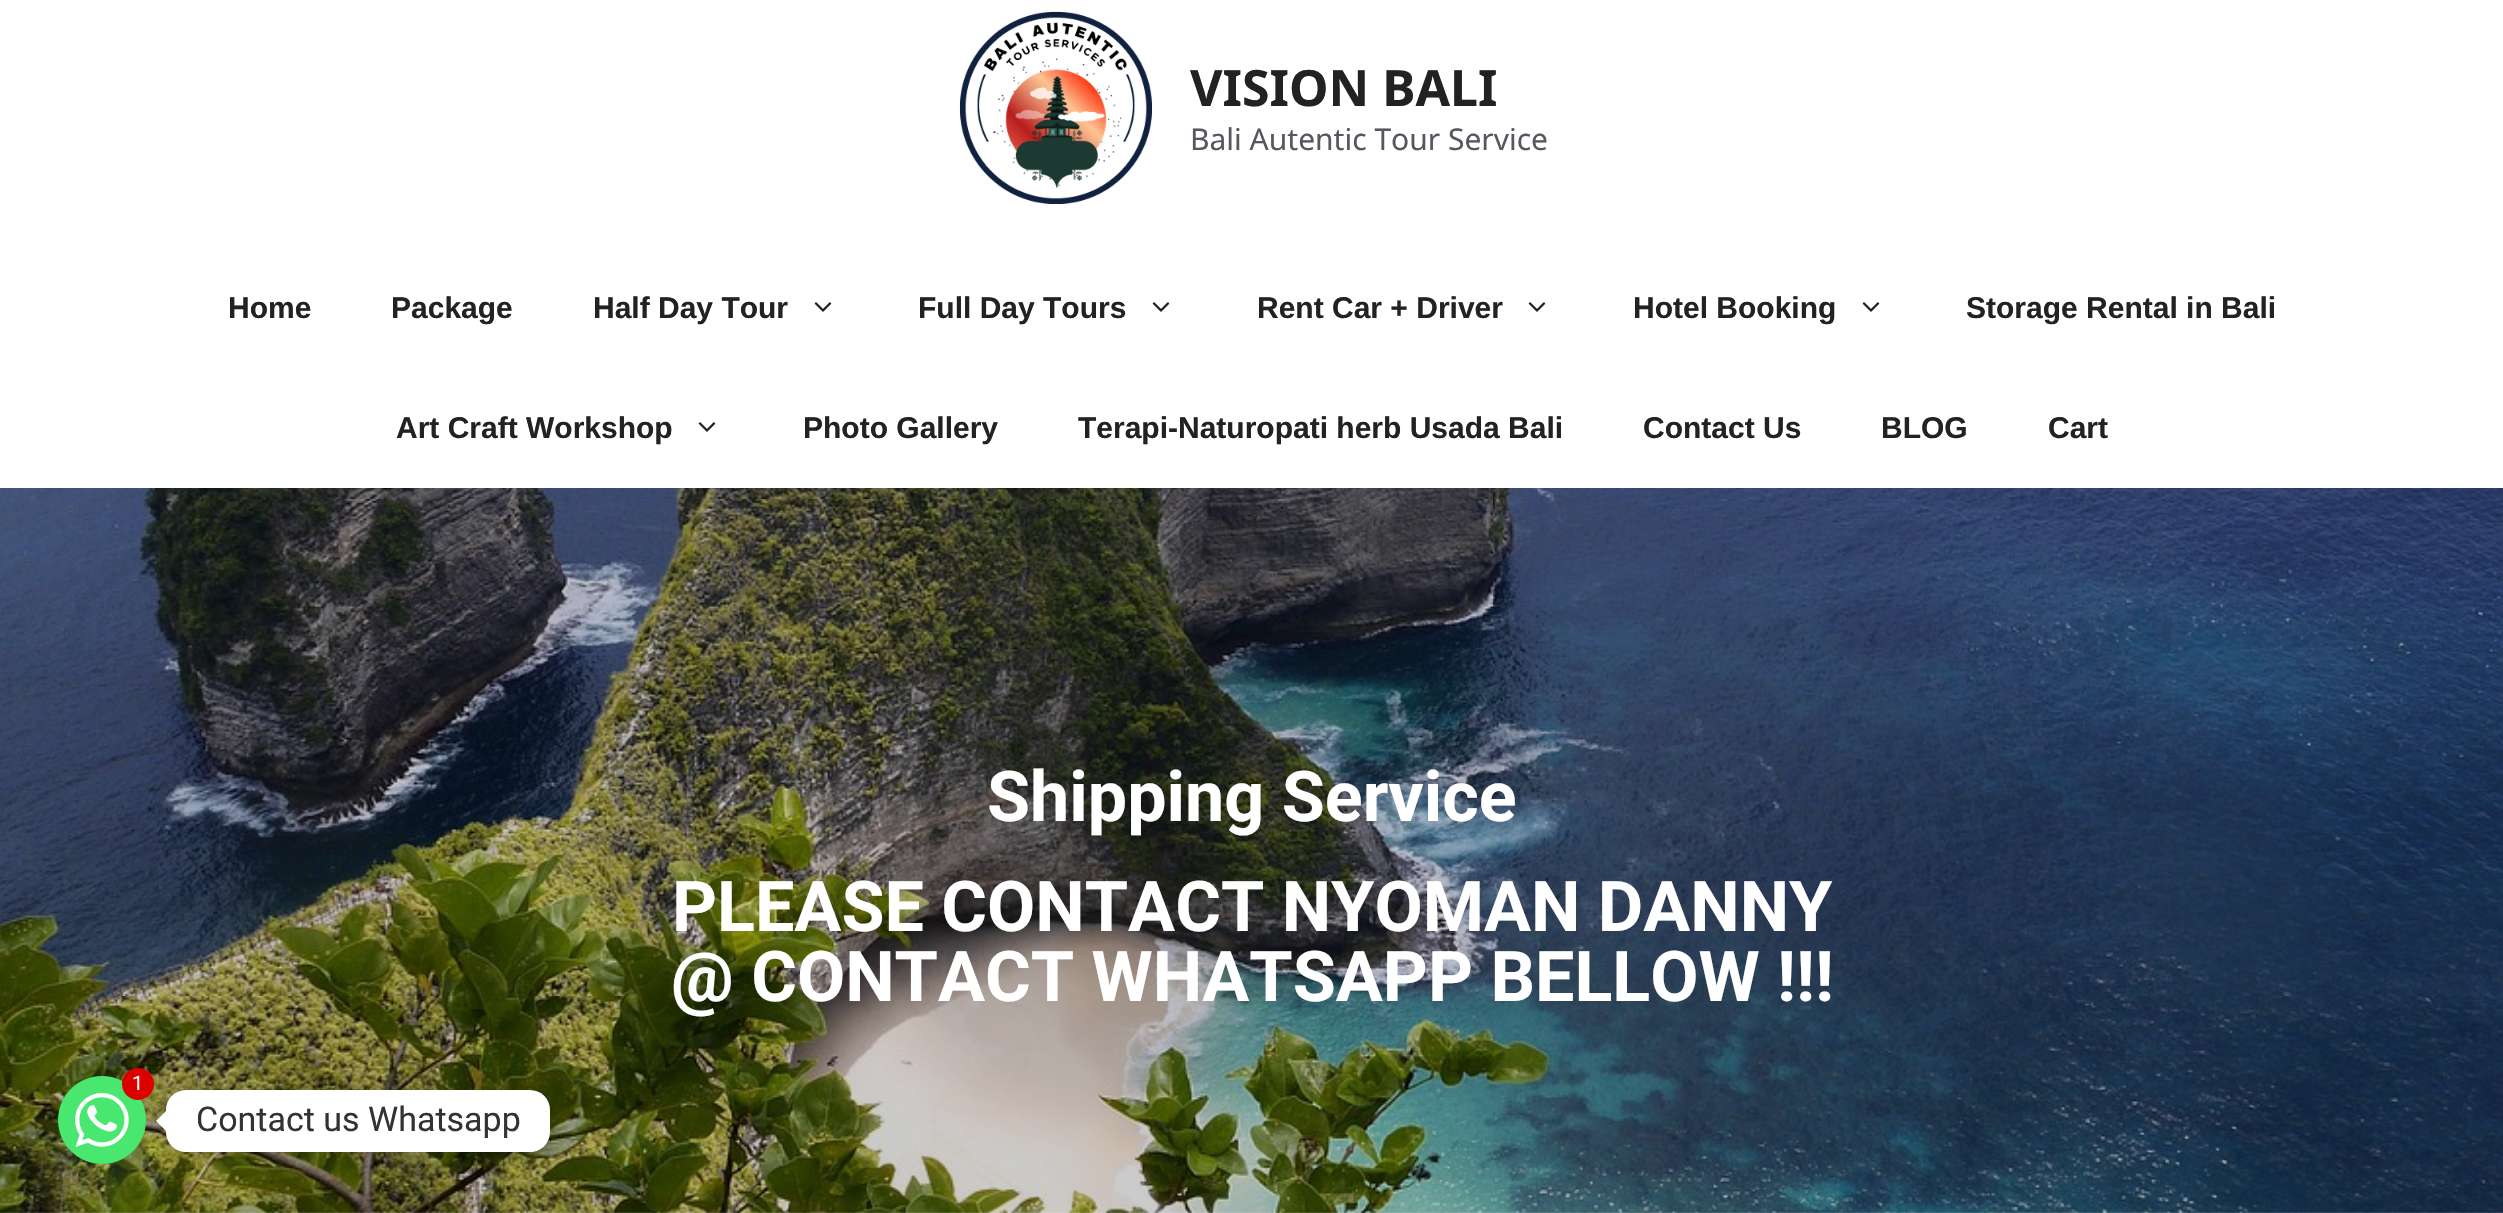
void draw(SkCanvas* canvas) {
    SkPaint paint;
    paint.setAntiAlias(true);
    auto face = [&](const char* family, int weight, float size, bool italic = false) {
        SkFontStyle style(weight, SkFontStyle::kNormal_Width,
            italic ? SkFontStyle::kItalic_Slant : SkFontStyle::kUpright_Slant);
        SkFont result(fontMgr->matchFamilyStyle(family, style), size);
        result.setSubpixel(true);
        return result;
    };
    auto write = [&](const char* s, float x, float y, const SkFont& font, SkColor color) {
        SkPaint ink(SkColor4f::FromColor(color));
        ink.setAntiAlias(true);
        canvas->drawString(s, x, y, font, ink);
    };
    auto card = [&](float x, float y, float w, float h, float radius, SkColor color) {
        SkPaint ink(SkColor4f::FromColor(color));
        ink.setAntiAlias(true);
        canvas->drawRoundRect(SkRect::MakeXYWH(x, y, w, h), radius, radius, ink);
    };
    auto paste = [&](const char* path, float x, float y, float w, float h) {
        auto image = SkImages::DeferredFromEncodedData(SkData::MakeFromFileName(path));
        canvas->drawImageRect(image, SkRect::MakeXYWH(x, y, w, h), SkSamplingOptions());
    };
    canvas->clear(SK_ColorWHITE);
    paste("pic1.png", 959, 11, 193, 193);
    auto kFont1 = face("Noto Sans", 700, 50);
    write("VISION BALI", 1190, 106, kFont1, SkColorSetRGB(34, 34, 34));
    auto kFont2 = face("Noto Sans", 400, 30);
    write("Bali Autentic Tour Service", 1190, 150, kFont2, SkColorSetRGB(87, 87, 96));
    auto kFont3 = face("Liberation Sans", 700, 30);
    write("Home", 228, 318, kFont3, SkColorSetRGB(34, 34, 34));
    write("Package", 391, 318, kFont3, SkColorSetRGB(34, 34, 34));
    write("Half Day Tour", 593, 318, kFont3, SkColorSetRGB(34, 34, 34));
    paste("pic2.png", 814, 302, 18, 10);
    write("Full Day Tours", 918, 318, kFont3, SkColorSetRGB(34, 34, 34));
    paste("pic2.png", 1152, 302, 18, 10);
    write("Rent Car + Driver", 1257, 318, kFont3, SkColorSetRGB(34, 34, 34));
    paste("pic2.png", 1528, 302, 18, 10);
    write("Hotel Booking", 1633, 318, kFont3, SkColorSetRGB(34, 34, 34));
    paste("pic2.png", 1862, 302, 18, 10);
    write("Storage Rental in Bali", 1966, 318, kFont3, SkColorSetRGB(34, 34, 34));
    write("Art Craft Workshop", 396, 438, kFont3, SkColorSetRGB(34, 34, 34));
    paste("pic2.png", 698, 422, 18, 10);
    write("Photo Gallery", 803, 438, kFont3, SkColorSetRGB(34, 34, 34));
    write("Terapi-Naturopati herb Usada Bali", 1078, 438, kFont3, SkColorSetRGB(34, 34, 34));
    write("Contact Us", 1643, 438, kFont3, SkColorSetRGB(34, 34, 34));
    write("BLOG", 1881, 438, kFont3, SkColorSetRGB(34, 34, 34));
    write("Cart", 2048, 438, kFont3, SkColorSetRGB(34, 34, 34));
    paste("pic3.png", 0, 488, 2503, 725);
    auto kFont4 = face("Roboto", 700, 70);
    write("Shipping Service", 987, 821, kFont4, SK_ColorWHITE);
    write("PLEASE CONTACT NYOMAN DANNY", 672, 931, kFont4, SK_ColorWHITE);
    write("@ CONTACT WHATSAPP BELLOW !!!", 671, 1001, kFont4, SK_ColorWHITE);
    paint.setColor(SkColorSetARGB(41, 73, 104, 126));
    paint.setMaskFilter(SkMaskFilter::MakeBlur(kNormal_SkBlurStyle, 24));
    canvas->drawRoundRect(SkRect::MakeXYWH(58, 1108, 88, 88), 44, 44, paint);
    paint.setMaskFilter(nullptr);
    paste("pic4.png", 58, 1076, 88, 88);
    paint.setColor(SkColorSetARGB(38, 0, 0, 0));
    paint.setMaskFilter(SkMaskFilter::MakeBlur(kNormal_SkBlurStyle, 7.5f));
    canvas->drawRoundRect(SkRect::MakeXYWH(166, 1092, 384, 62), 20, 20, paint);
    paint.setMaskFilter(nullptr);
    paint.setColor(SkColorSetRGB(221, 0, 0));
    canvas->drawCircle(138, 1084, 16, paint);
    auto kFont5 = face("Roboto", 400, 20);
    write("1", 132, 1090, kFont5, SK_ColorWHITE);
    card(166, 1090, 384, 62, 20, SK_ColorWHITE);
    paint.setColor(SK_ColorWHITE);
    canvas->drawPath(SkPathBuilder().moveTo(166, 1111).lineTo(166, 1131).lineTo(156, 1121).close().detach(), paint);
    auto kFont6 = face("Roboto", 400, 34);
    write("Contact us Whatsapp", 196, 1131, kFont6, SkColorSetRGB(51, 51, 51));
}
